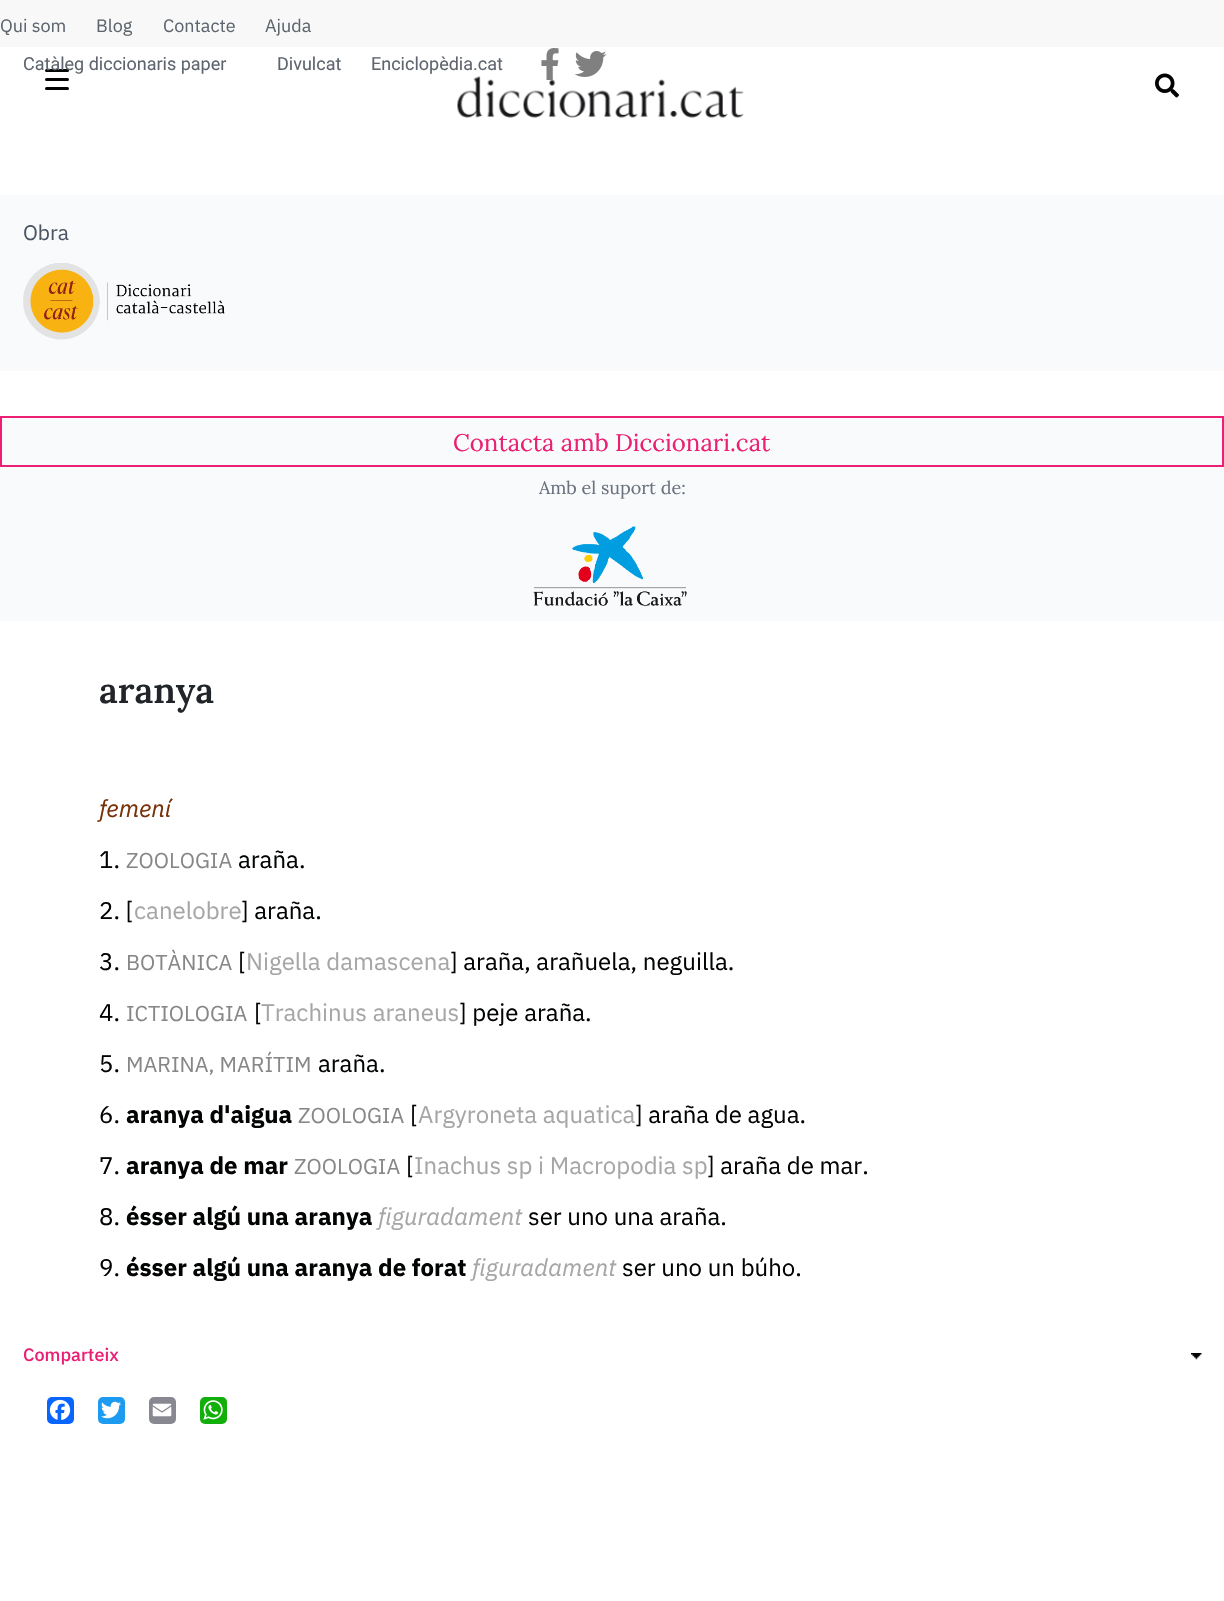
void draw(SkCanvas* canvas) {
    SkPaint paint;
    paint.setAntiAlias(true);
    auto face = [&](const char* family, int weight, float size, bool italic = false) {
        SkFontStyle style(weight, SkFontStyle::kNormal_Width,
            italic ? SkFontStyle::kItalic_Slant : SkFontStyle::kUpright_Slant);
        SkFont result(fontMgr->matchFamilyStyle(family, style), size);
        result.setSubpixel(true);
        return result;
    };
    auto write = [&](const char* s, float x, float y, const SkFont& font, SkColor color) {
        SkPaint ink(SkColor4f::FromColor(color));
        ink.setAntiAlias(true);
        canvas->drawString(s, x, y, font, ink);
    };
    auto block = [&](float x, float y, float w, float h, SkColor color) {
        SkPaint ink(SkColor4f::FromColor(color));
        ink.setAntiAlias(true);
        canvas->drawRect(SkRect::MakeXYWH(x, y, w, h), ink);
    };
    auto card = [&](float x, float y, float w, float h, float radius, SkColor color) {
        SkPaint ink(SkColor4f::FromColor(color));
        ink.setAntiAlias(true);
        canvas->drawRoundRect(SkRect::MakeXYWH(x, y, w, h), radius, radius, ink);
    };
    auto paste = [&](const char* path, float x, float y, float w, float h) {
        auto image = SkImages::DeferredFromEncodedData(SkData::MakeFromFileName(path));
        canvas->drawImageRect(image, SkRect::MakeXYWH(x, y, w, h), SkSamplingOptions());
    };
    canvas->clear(SK_ColorWHITE);
    block(0, 0, 1224, 47, SkColorSetRGB(248, 248, 248));
    auto kFont1 = face("IBM Plex Sans", 400, 18);
    write("Qui som", 0, 32, kFont1, SkColorSetRGB(94, 101, 110));
    write("Blog", 96, 32, kFont1, SkColorSetRGB(94, 101, 110));
    write("Contacte", 163, 32, kFont1, SkColorSetRGB(94, 101, 110));
    write("Ajuda", 265, 32, kFont1, SkColorSetRGB(94, 101, 110));
    card(45, 69, 24, 3, 1.5f, SkColorSetRGB(2, 3, 3));
    auto kFont2 = face("Roboto", 400, 18);
    write("Catàleg diccionaris paper", 23, 70, kFont2, SkColorSetRGB(94, 101, 110));
    write("Divulcat", 277, 70, kFont2, SkColorSetRGB(94, 101, 110));
    write("Enciclopèdia.cat", 371, 70, kFont2, SkColorSetRGB(94, 101, 110));
    paste("pic3.png", 457, 76, 287, 42);
    paste("pic1.png", 541, 48, 18, 32);
    paste("pic2.png", 574, 51, 33, 26);
    card(45, 78, 24, 3, 1.5f, SkColorSetRGB(2, 3, 3));
    card(45, 87, 24, 3, 1.5f, SkColorSetRGB(2, 3, 3));
    paste("pic4.png", 1155, 73, 24, 25);
    block(0, 195, 1224, 176, SkColorSetRGB(249, 250, 251));
    auto kFont3 = face("IBM Plex Sans", 400, 21);
    write("Obra", 23, 240, kFont3, SkColorSetRGB(75, 85, 99));
    paste("pic5.png", 23, 263, 202, 77);
    paint.setColor(SkColorSetRGB(249, 250, 251));
    canvas->drawRect(SkRect::MakeXYWH(1, 417, 1222, 49), paint);
    paint.setStyle(SkPaint::kStroke_Style);
    paint.setStrokeWidth(2);
    paint.setColor(SkColorSetRGB(235, 31, 115));
    canvas->drawRect(SkRect::MakeXYWH(1, 417, 1222, 49), paint);
    auto kFont4 = face("Lora", 400, 24);
    write("Contacta amb Diccionari.cat", 453, 451, kFont4, SkColorSetRGB(235, 31, 115));
    block(0, 467, 1224, 154, SkColorSetRGB(249, 250, 251));
    auto kFont5 = face("Lora", 400, 18);
    write("Amb el suport de:", 539, 494, kFont5, SkColorSetRGB(107, 114, 128));
    paste("pic6.png", 533, 526, 154, 80);
    auto kFont6 = face("Lora", 600, 36);
    write("aranya", 99, 703, kFont6, SkColorSetRGB(33, 37, 41));
    auto kFont7 = face("IBM Plex Sans", 400, 24, true);
    write("femení", 99, 817, kFont7, SkColorSetRGB(120, 50, 10));
    auto kFont8 = face("IBM Plex Sans", 400, 24);
    write("1.", 99, 868, kFont8, SkColorSetRGB(2, 3, 3));
    auto kFont9 = face("IBM Plex Sans", 400, 21.5f);
    write("ZOOLOGIA", 126, 868, kFont9, SkColorSetRGB(135, 135, 135));
    write("araña.", 238, 868, kFont8, SkColorSetRGB(2, 3, 3));
    write("2. [", 99, 919, kFont8, SkColorSetRGB(2, 3, 3));
    write("canelobre", 134, 919, kFont8, SkColorSetRGB(166, 166, 166));
    write("] araña.", 241, 919, kFont8, SkColorSetRGB(2, 3, 3));
    write("3.", 99, 970, kFont8, SkColorSetRGB(2, 3, 3));
    write("BOTÀNICA", 126, 970, kFont9, SkColorSetRGB(135, 135, 135));
    write("[", 238, 970, kFont8, SkColorSetRGB(2, 3, 3));
    write("Nigella damascena", 246, 970, kFont8, SkColorSetRGB(166, 166, 166));
    write("] araña, arañuela, neguilla.", 450, 970, kFont8, SkColorSetRGB(2, 3, 3));
    write("4.", 99, 1021, kFont8, SkColorSetRGB(2, 3, 3));
    write("ICTIOLOGIA", 126, 1021, kFont9, SkColorSetRGB(135, 135, 135));
    write("[", 254, 1021, kFont8, SkColorSetRGB(2, 3, 3));
    write("Trachinus araneus", 261, 1021, kFont8, SkColorSetRGB(166, 166, 166));
    write("] peje araña.", 459, 1021, kFont8, SkColorSetRGB(2, 3, 3));
    write("5.", 99, 1072, kFont8, SkColorSetRGB(2, 3, 3));
    write("MARINA, MARÍTIM", 126, 1072, kFont9, SkColorSetRGB(135, 135, 135));
    write("araña.", 318, 1072, kFont8, SkColorSetRGB(2, 3, 3));
    write("6.", 99, 1123, kFont8, SkColorSetRGB(2, 3, 3));
    auto kFont10 = face("IBM Plex Sans", 700, 24);
    write("aranya d'aigua", 126, 1123, kFont10, SkColorSetRGB(2, 3, 3));
    write("ZOOLOGIA", 298, 1123, kFont9, SkColorSetRGB(135, 135, 135));
    write("[", 410, 1123, kFont8, SkColorSetRGB(2, 3, 3));
    write("Argyroneta aquatica", 418, 1123, kFont8, SkColorSetRGB(166, 166, 166));
    write("] araña de agua.", 635, 1123, kFont8, SkColorSetRGB(2, 3, 3));
    write("7.", 99, 1174, kFont8, SkColorSetRGB(2, 3, 3));
    write("aranya de mar", 126, 1174, kFont10, SkColorSetRGB(2, 3, 3));
    write("ZOOLOGIA", 294, 1174, kFont9, SkColorSetRGB(135, 135, 135));
    write("[", 406, 1174, kFont8, SkColorSetRGB(2, 3, 3));
    write("Inachus sp i Macropodia sp", 414, 1174, kFont8, SkColorSetRGB(166, 166, 166));
    write("] araña de mar.", 707, 1174, kFont8, SkColorSetRGB(2, 3, 3));
    write("8.", 99, 1225, kFont8, SkColorSetRGB(2, 3, 3));
    write("ésser algú una aranya", 126, 1225, kFont10, SkColorSetRGB(2, 3, 3));
    write("figuradament", 378, 1225, kFont7, SkColorSetRGB(166, 166, 166));
    write("ser uno una araña.", 528, 1225, kFont8, SkColorSetRGB(2, 3, 3));
    write("9.", 99, 1276, kFont8, SkColorSetRGB(2, 3, 3));
    write("ésser algú una aranya de forat", 126, 1276, kFont10, SkColorSetRGB(2, 3, 3));
    write("figuradament", 472, 1276, kFont7, SkColorSetRGB(166, 166, 166));
    write("ser uno un búho.", 622, 1276, kFont8, SkColorSetRGB(2, 3, 3));
    paste("pic7.png", 1191, 1353, 11, 7);
    auto kFont11 = face("IBM Plex Sans", 500, 18);
    write("Comparteix", 23, 1361, kFont11, SkColorSetRGB(235, 31, 115));
    card(47, 1397, 27, 27, 5, SkColorSetRGB(8, 102, 255));
    paste("pic8.png", 49, 1399, 22, 21);
    card(98, 1397, 27, 27, 5, SkColorSetRGB(29, 155, 240));
    paste("pic9.png", 101, 1401, 20, 18);
    card(149, 1397, 27, 27, 5, SkColorSetRGB(136, 137, 144));
    paste("pic10.png", 152, 1403, 20, 14);
    card(200, 1397, 27, 27, 5, SkColorSetRGB(18, 175, 10));
    paste("pic11.png", 203, 1400, 20, 20);
}
